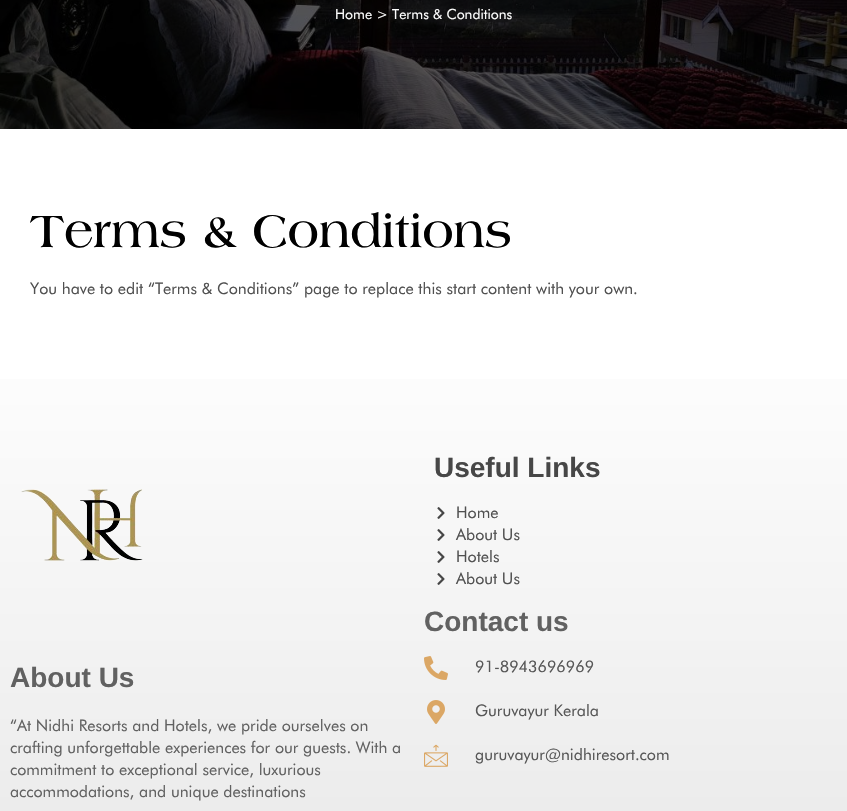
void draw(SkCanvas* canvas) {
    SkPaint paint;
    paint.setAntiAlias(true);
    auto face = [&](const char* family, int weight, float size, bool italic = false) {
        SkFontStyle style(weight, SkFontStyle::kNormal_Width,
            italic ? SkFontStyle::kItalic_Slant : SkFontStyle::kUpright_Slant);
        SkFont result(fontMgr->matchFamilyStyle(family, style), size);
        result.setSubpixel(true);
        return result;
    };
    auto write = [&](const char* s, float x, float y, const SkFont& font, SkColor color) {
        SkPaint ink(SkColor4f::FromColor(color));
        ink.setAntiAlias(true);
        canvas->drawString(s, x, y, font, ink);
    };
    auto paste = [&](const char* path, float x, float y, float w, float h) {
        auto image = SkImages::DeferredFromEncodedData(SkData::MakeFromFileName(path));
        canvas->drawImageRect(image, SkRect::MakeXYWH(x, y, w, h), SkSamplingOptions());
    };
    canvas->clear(SK_ColorWHITE);
    paste("pic1.png", 0, 0, 847, 129);
    auto kFont1 = face("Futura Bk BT", 400, 14);
    write("Home > Terms & Conditions", 335, 19, kFont1, SK_ColorWHITE);
    auto kFont2 = face("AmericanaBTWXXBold", 700, 48);
    write("Terms & Conditions", 30, 247, kFont2, SK_ColorBLACK);
    auto kFont3 = face("Futura Bk BT", 400, 16);
    write("You have to edit “Terms & Conditions” page to replace this start content with your own.", 30, 294, kFont3, SkColorSetRGB(80, 80, 80));
    {
        const SkColor colors[] = {SkColorSetRGB(233, 233, 233), SkColorSetRGB(253, 253, 253)};
        const float stops[] = {0, 1};
        const SkPoint ends[] = {{424, 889}, {424, 366}};
        paint.setShader(SkGradientShader::MakeLinear(ends, colors, stops, 2, SkTileMode::kClamp));
        paint.setAlpha(255);
    }
    canvas->drawRect(SkRect::MakeXYWH(0, 379, 847, 432), paint);
    paste("pic2.png", 21, 489, 122, 72);
    auto kFont4 = face("Liberation Sans", 700, 28);
    write("Useful Links", 434, 477, kFont4, SkColorSetRGB(71, 71, 71));
    paste("pic3.png", 437, 507, 8, 12);
    write("Home", 456, 518, kFont3, SkColorSetRGB(80, 80, 80));
    paste("pic4.png", 437, 529, 8, 12);
    write("About Us", 456, 540, kFont3, SkColorSetRGB(80, 80, 80));
    paste("pic5.png", 437, 551, 8, 12);
    write("Hotels", 456, 562, kFont3, SkColorSetRGB(80, 80, 80));
    paste("pic6.png", 437, 573, 8, 12);
    write("About Us", 456, 584, kFont3, SkColorSetRGB(80, 80, 80));
    write("About Us", 10, 687, kFont4, SkColorSetRGB(97, 97, 97));
    write("“At Nidhi Resorts and Hotels, we pride ourselves on", 10, 731, kFont3, SkColorSetRGB(97, 97, 97));
    write("crafting unforgettable experiences for our guests. With a", 10, 753, kFont3, SkColorSetRGB(97, 97, 97));
    write("commitment to exceptional service, luxurious", 10, 775, kFont3, SkColorSetRGB(97, 97, 97));
    write("accommodations, and unique destinations", 10, 797, kFont3, SkColorSetRGB(97, 97, 97));
    write("Contact us", 424, 631, kFont4, SkColorSetRGB(97, 97, 97));
    paste("pic7.png", 424, 656, 24, 24);
    write("91-8943696969", 475, 672, kFont3, SkColorSetRGB(87, 87, 87));
    paste("pic8.png", 427, 700, 18, 24);
    write("Guruvayur Kerala", 475, 716, kFont3, SkColorSetRGB(87, 87, 87));
    paste("pic9.png", 424, 744, 24, 23);
    write("guruvayur@nidhiresort.com", 475, 760, kFont3, SkColorSetRGB(87, 87, 87));
}
